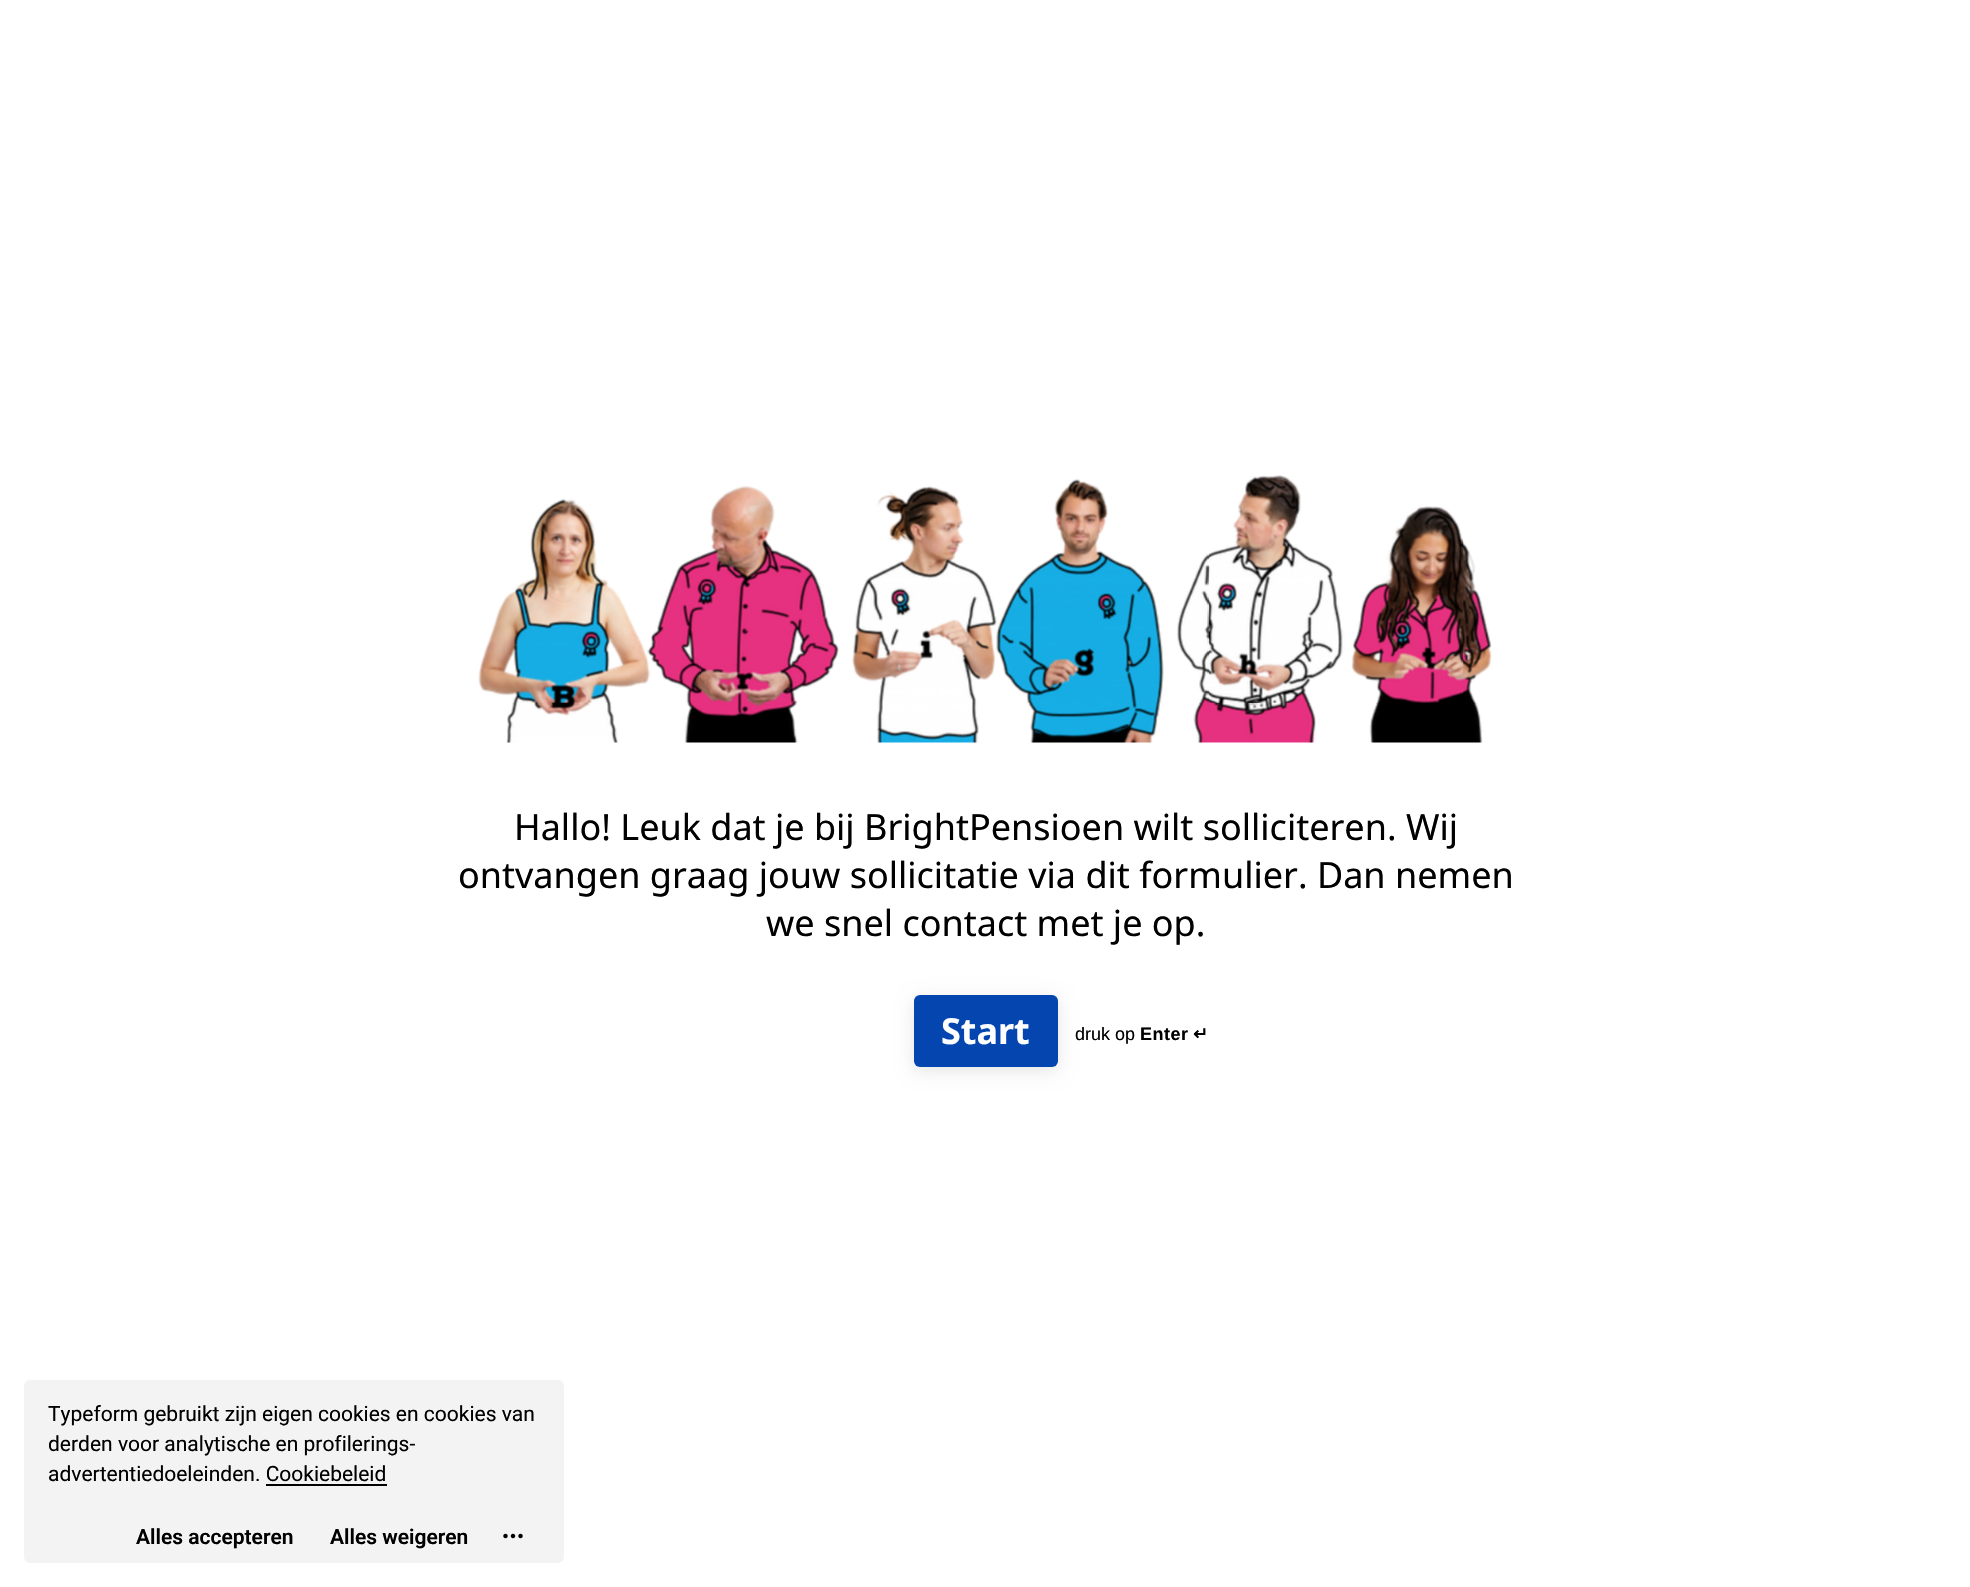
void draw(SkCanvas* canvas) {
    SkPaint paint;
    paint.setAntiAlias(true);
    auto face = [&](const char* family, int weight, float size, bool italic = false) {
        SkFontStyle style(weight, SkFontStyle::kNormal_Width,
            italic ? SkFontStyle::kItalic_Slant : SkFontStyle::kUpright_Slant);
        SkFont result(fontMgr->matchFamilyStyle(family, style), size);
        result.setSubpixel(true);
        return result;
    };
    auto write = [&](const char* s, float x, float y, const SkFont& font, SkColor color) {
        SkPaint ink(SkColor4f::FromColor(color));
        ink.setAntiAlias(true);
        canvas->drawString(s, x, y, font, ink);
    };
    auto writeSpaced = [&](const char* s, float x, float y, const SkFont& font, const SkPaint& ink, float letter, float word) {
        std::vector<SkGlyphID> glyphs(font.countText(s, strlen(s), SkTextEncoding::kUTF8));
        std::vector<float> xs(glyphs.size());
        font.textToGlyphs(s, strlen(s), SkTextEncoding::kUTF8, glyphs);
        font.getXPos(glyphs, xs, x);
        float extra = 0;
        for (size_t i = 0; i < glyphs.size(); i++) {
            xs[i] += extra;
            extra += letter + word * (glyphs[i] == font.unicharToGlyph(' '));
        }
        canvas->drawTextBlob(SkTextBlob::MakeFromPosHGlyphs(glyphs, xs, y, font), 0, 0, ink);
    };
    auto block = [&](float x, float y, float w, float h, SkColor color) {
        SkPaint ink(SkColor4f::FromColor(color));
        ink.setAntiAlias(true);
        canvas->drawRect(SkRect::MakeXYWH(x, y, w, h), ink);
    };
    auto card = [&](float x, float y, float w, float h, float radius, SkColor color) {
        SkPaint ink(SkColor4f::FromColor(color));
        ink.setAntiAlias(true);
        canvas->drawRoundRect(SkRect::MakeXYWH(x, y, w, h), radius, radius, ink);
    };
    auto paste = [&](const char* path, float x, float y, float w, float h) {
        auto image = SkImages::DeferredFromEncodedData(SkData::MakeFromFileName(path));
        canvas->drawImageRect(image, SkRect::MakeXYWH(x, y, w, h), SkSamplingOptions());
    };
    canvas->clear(SK_ColorWHITE);
    paste("pic1.png", 478, 475, 1014, 268);
    auto kFont1 = face("Noto Sans", 400, 36);
    write("Hallo! Leuk dat je bij BrightPensioen wilt solliciteren. Wij", 514, 840, kFont1, SK_ColorBLACK);
    write("ontvangen graag jouw sollicitatie via dit formulier. Dan nemen", 458, 888, kFont1, SK_ColorBLACK);
    write("we snel contact met je op.", 766, 936, kFont1, SK_ColorBLACK);
    paint.setColor(SkColorSetARGB(26, 0, 0, 0));
    paint.setMaskFilter(SkMaskFilter::MakeBlur(kNormal_SkBlurStyle, 9));
    canvas->drawRoundRect(SkRect::MakeXYWH(914, 999, 144, 72), 6, 6, paint);
    paint.setMaskFilter(nullptr);
    card(914, 995, 144, 72, 6, SkColorSetRGB(4, 69, 175));
    auto kFont2 = face("Noto Sans", 700, 36);
    write("Start", 941, 1044, kFont2, SK_ColorWHITE);
    auto kFont3 = face("Liberation Sans", 400, 18);
    write("druk op", 1075, 1040, kFont3, SK_ColorBLACK);
    auto kFont4 = face("Liberation Sans", 700, 18);
    paint.setColor(SK_ColorBLACK);
    writeSpaced("Enter", 1140, 1040, kFont4, paint, 0.5f, 0);
    auto kFont5 = face("DejaVu Sans", 700, 18);
    writeSpaced("↵", 1193, 1040, kFont5, paint, 0.5f, 0);
    card(24, 1380, 540, 183, 6, SkColorSetRGB(243, 243, 243));
    auto kFont6 = face("Roboto", 400, 21);
    write("Typeform gebruikt zijn eigen cookies en cookies van", 48, 1421, kFont6, SK_ColorBLACK);
    write("derden voor analytische en profilerings-", 48, 1451, kFont6, SK_ColorBLACK);
    write("advertentiedoeleinden. Cookiebeleid", 48, 1481, kFont6, SK_ColorBLACK);
    block(266, 1484, 121, 2, SK_ColorBLACK);
    auto kFont7 = face("Roboto", 600, 21);
    write("Alles accepteren", 136, 1544, kFont7, SK_ColorBLACK);
    write("Alles weigeren", 330, 1544, kFont7, SK_ColorBLACK);
    paste("pic2.png", 503, 1533, 20, 6);
}
